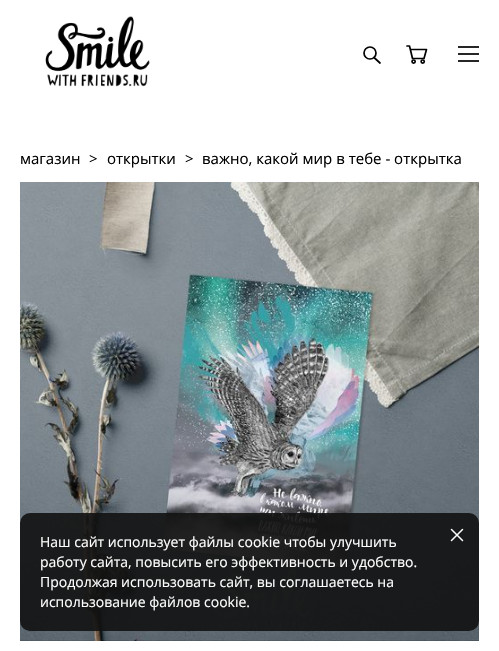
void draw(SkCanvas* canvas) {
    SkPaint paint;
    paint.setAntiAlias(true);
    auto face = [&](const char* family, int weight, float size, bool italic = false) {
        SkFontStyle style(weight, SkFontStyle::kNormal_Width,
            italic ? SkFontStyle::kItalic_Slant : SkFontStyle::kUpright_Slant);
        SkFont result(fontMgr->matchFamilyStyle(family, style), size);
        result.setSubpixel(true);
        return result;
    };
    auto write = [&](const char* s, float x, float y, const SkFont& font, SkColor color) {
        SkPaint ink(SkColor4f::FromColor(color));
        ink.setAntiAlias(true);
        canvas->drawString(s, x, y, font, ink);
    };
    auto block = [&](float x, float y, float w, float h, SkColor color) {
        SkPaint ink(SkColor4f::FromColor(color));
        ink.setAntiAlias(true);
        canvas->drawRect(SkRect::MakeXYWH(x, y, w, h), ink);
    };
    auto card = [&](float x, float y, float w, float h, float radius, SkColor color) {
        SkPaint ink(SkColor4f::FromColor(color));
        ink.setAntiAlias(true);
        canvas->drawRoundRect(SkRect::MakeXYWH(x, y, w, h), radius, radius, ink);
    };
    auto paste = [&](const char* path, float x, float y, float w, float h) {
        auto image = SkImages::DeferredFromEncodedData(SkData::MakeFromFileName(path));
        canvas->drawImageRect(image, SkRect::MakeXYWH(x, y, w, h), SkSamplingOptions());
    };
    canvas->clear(SK_ColorWHITE);
    paste("pic1.png", 45, 16, 105, 71);
    paint.setStyle(SkPaint::kStroke_Style);
    paint.setStrokeWidth(1.7f);
    paint.setColor(SK_ColorBLACK);
    canvas->drawCircle(370, 53, 6, paint);
    paint.setStrokeCap(SkPaint::kRound_Cap);
    paint.setStrokeJoin(SkPaint::kRound_Join);
    canvas->drawPath(SkPathBuilder().moveTo(374, 57.5f).lineTo(380, 63).detach(), paint);
    canvas->drawPath(SkPathBuilder().moveTo(407, 46).lineTo(409.5f, 46).lineTo(412.5f, 58.5f).lineTo(424, 58.5f).lineTo(426.5f, 49.5f).lineTo(411, 49.5f).detach(), paint);
    paint.setStrokeCap(SkPaint::kButt_Cap);
    paint.setStrokeJoin(SkPaint::kMiter_Join);
    canvas->drawCircle(413.6f, 61.6f, 1.6f, paint);
    canvas->drawCircle(422.7f, 61.6f, 1.6f, paint);
    block(458, 46, 21, 2, SkColorSetRGB(38, 38, 38));
    block(458, 53, 21, 2, SkColorSetRGB(38, 38, 38));
    block(458, 60, 21, 2, SkColorSetRGB(38, 38, 38));
    auto kFont1 = face("Open Sans", 400, 15);
    write("магазин", 20, 164, kFont1, SK_ColorBLACK);
    write(">", 89, 164, kFont1, SK_ColorBLACK);
    write("открытки", 107, 164, kFont1, SK_ColorBLACK);
    write(">", 185, 164, kFont1, SK_ColorBLACK);
    write("важно, какой мир в тебе - открытка", 202, 164, kFont1, SK_ColorBLACK);
    paste("pic2.png", 20, 182, 459, 459);
    card(20, 513, 459, 118, 10, SkColorSetARGB(230, 17, 17, 17));
    auto kFont2 = face("Open Sans", 400, 14);
    write("Наш сайт использует файлы cookie чтобы улучшить", 40, 547, kFont2, SK_ColorWHITE);
    write("работу сайта, повысить его эффективность и удобство.", 40, 567, kFont2, SK_ColorWHITE);
    write("Продолжая использовать сайт, вы соглашаетесь на", 40, 587, kFont2, SK_ColorWHITE);
    write("использование файлов cookie.", 40, 607, kFont2, SK_ColorWHITE);
    paint.setStrokeWidth(1.5f);
    paint.setStrokeCap(SkPaint::kRound_Cap);
    paint.setStrokeJoin(SkPaint::kRound_Join);
    paint.setColor(SK_ColorWHITE);
    canvas->drawPath(SkPathBuilder().moveTo(462.5f, 529.5f).lineTo(451.5f, 540.5f).moveTo(451.5f, 529.5f).lineTo(462.5f, 540.5f).detach(), paint);
}
